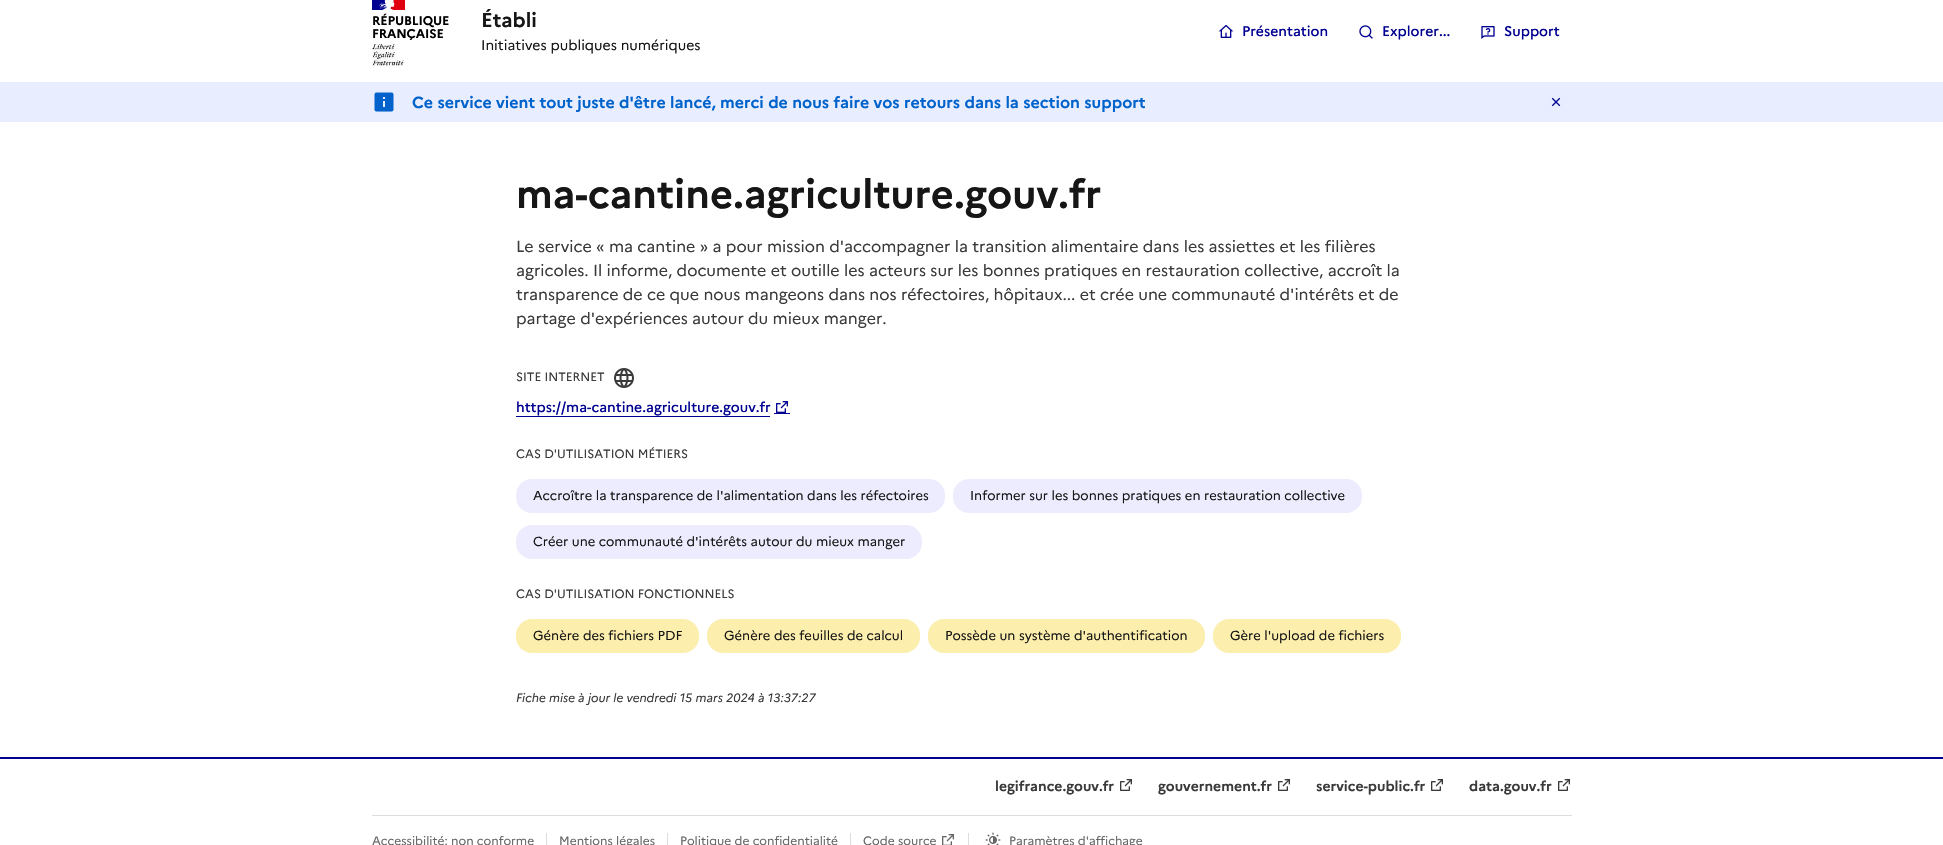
void draw(SkCanvas* canvas) {
    SkPaint paint;
    paint.setAntiAlias(true);
    auto face = [&](const char* family, int weight, float size, bool italic = false) {
        SkFontStyle style(weight, SkFontStyle::kNormal_Width,
            italic ? SkFontStyle::kItalic_Slant : SkFontStyle::kUpright_Slant);
        SkFont result(fontMgr->matchFamilyStyle(family, style), size);
        result.setSubpixel(true);
        return result;
    };
    auto write = [&](const char* s, float x, float y, const SkFont& font, SkColor color) {
        SkPaint ink(SkColor4f::FromColor(color));
        ink.setAntiAlias(true);
        canvas->drawString(s, x, y, font, ink);
    };
    auto writeSpaced = [&](const char* s, float x, float y, const SkFont& font, const SkPaint& ink, float letter, float word) {
        std::vector<SkGlyphID> glyphs(font.countText(s, strlen(s), SkTextEncoding::kUTF8));
        std::vector<float> xs(glyphs.size());
        font.textToGlyphs(s, strlen(s), SkTextEncoding::kUTF8, glyphs);
        font.getXPos(glyphs, xs, x);
        float extra = 0;
        for (size_t i = 0; i < glyphs.size(); i++) {
            xs[i] += extra;
            extra += letter + word * (glyphs[i] == font.unicharToGlyph(' '));
        }
        canvas->drawTextBlob(SkTextBlob::MakeFromPosHGlyphs(glyphs, xs, y, font), 0, 0, ink);
    };
    auto block = [&](float x, float y, float w, float h, SkColor color) {
        SkPaint ink(SkColor4f::FromColor(color));
        ink.setAntiAlias(true);
        canvas->drawRect(SkRect::MakeXYWH(x, y, w, h), ink);
    };
    auto card = [&](float x, float y, float w, float h, float radius, SkColor color) {
        SkPaint ink(SkColor4f::FromColor(color));
        ink.setAntiAlias(true);
        canvas->drawRoundRect(SkRect::MakeXYWH(x, y, w, h), radius, radius, ink);
    };
    auto paste = [&](const char* path, float x, float y, float w, float h) {
        auto image = SkImages::DeferredFromEncodedData(SkData::MakeFromFileName(path));
        canvas->drawImageRect(image, SkRect::MakeXYWH(x, y, w, h), SkSamplingOptions());
    };
    canvas->clear(SK_ColorWHITE);
    block(372, 0, 16, 10, SkColorSetRGB(0, 0, 145));
    block(390, 0, 15, 10, SkColorSetRGB(225, 0, 15));
    paste("pic1.png", 379, 0, 16, 10);
    auto kFont1 = face("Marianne", 700, 12.5f);
    paint.setColor(SK_ColorBLACK);
    writeSpaced("RÉPUBLIQUE", 372, 25, kFont1, paint, -0.1f, 0);
    writeSpaced("FRANÇAISE", 372, 38, kFont1, paint, -0.1f, 0);
    paste("pic2.png", 372, 44, 32, 23);
    auto kFont2 = face("Marianne", 700, 20);
    write("Établi", 481, 27, kFont2, SkColorSetRGB(22, 22, 22));
    auto kFont3 = face("Marianne", 400, 14);
    write("Initiatives publiques numériques", 481, 50, kFont3, SkColorSetRGB(22, 22, 22));
    paste("pic3.png", 1218, 25, 16, 13);
    auto kFont4 = face("Marianne", 500, 14);
    write("Présentation", 1242, 36, kFont4, SkColorSetRGB(0, 0, 145));
    paste("pic4.png", 1359, 25, 14, 14);
    write("Explorer...", 1382, 36, kFont4, SkColorSetRGB(0, 0, 145));
    paste("pic5.png", 1481, 26, 14, 13);
    write("Support", 1504, 36, kFont4, SkColorSetRGB(0, 0, 145));
    block(0, 82, 1943, 40, SkColorSetRGB(232, 237, 255));
    paste("pic6.png", 374, 92, 20, 20);
    auto kFont5 = face("Marianne", 700, 16);
    write("Ce service vient tout juste d'être lancé, merci de nous faire vos retours dans la section support", 412, 108, kFont5, SkColorSetRGB(0, 99, 203));
    paste("pic7.png", 1551, 97, 10, 10);
    auto kFont6 = face("Marianne", 700, 40);
    write("ma-cantine.agriculture.gouv.fr", 516, 208, kFont6, SkColorSetRGB(22, 22, 22));
    auto kFont7 = face("Marianne", 400, 16);
    write("Le service « ma cantine » a pour mission d'accompagner la transition alimentaire dans les assiettes et les filières", 516, 252, kFont7, SkColorSetRGB(58, 58, 58));
    write("agricoles. Il informe, documente et outille les acteurs sur les bonnes pratiques en restauration collective, accroît la", 516, 276, kFont7, SkColorSetRGB(58, 58, 58));
    write("transparence de ce que nous mangeons dans nos réfectoires, hôpitaux... et crée une communauté d'intérêts et de", 516, 300, kFont7, SkColorSetRGB(58, 58, 58));
    write("partage d'expériences autour du mieux manger.", 516, 324, kFont7, SkColorSetRGB(58, 58, 58));
    auto kFont8 = face("Marianne", 400, 12);
    write("SITE INTERNET", 516, 381, kFont8, SkColorSetRGB(58, 58, 58));
    paste("pic8.png", 614, 368, 20, 20);
    block(516, 416, 254, 1, SkColorSetRGB(0, 0, 145));
    block(774, 413, 16, 1, SkColorSetRGB(0, 0, 145));
    write("https://ma-cantine.agriculture.gouv.fr", 516, 412, kFont4, SkColorSetRGB(0, 0, 145));
    paste("pic9.png", 776, 401, 12, 12);
    write("CAS D'UTILISATION MÉTIERS", 516, 458, kFont8, SkColorSetRGB(58, 58, 58));
    card(516, 479, 429, 34, 16, SkColorSetRGB(236, 236, 254));
    auto kFont9 = face("Marianne", 400, 13);
    write("Accroître la transparence de l'alimentation dans les réfectoires", 533, 500, kFont9, SkColorSetRGB(22, 22, 22));
    card(953, 479, 409, 34, 16, SkColorSetRGB(236, 236, 254));
    write("Informer sur les bonnes pratiques en restauration collective", 970, 500, kFont9, SkColorSetRGB(22, 22, 22));
    card(516, 525, 406, 34, 16, SkColorSetRGB(236, 236, 254));
    write("Créer une communauté d'intérêts autour du mieux manger", 533, 546, kFont9, SkColorSetRGB(22, 22, 22));
    write("CAS D'UTILISATION FONCTIONNELS", 516, 598, kFont8, SkColorSetRGB(58, 58, 58));
    card(516, 619, 183, 34, 16, SkColorSetRGB(252, 238, 172));
    write("Génère des fichiers PDF", 533, 640, kFont9, SkColorSetRGB(22, 22, 22));
    card(707, 619, 213, 34, 16, SkColorSetRGB(252, 238, 172));
    write("Génère des feuilles de calcul", 724, 640, kFont9, SkColorSetRGB(22, 22, 22));
    card(928, 619, 277, 34, 16, SkColorSetRGB(252, 238, 172));
    write("Possède un système d'authentification", 945, 640, kFont9, SkColorSetRGB(22, 22, 22));
    card(1213, 619, 188, 34, 16, SkColorSetRGB(252, 238, 172));
    write("Gère l'upload de fichiers", 1230, 640, kFont9, SkColorSetRGB(22, 22, 22));
    auto kFont10 = face("Marianne", 400, 12, true);
    write("Fiche mise à jour le vendredi 15 mars 2024 à 13:37:27", 516, 702, kFont10, SkColorSetRGB(58, 58, 58));
    block(0, 757, 1943, 2, SkColorSetRGB(0, 0, 145));
    auto kFont11 = face("Marianne", 700, 14);
    write("legifrance.gouv.fr", 995, 791, kFont11, SkColorSetRGB(58, 58, 58));
    paste("pic10.png", 1120, 779, 12, 12);
    write("gouvernement.fr", 1158, 791, kFont11, SkColorSetRGB(58, 58, 58));
    paste("pic10.png", 1278, 779, 12, 12);
    write("service-public.fr", 1316, 791, kFont11, SkColorSetRGB(58, 58, 58));
    paste("pic10.png", 1431, 779, 12, 12);
    write("data.gouv.fr", 1469, 791, kFont11, SkColorSetRGB(58, 58, 58));
    paste("pic10.png", 1558, 779, 12, 12);
    block(372, 815, 1200, 1, SkColorSetRGB(221, 221, 221));
    write("Accessibilité: non conforme", 372, 845, kFont8, SkColorSetRGB(102, 102, 102));
    block(546, 833, 1, 12, SkColorSetRGB(221, 221, 221));
    write("Mentions légales", 559, 845, kFont8, SkColorSetRGB(102, 102, 102));
    block(667, 833, 1, 12, SkColorSetRGB(221, 221, 221));
    write("Politique de confidentialité", 680, 845, kFont8, SkColorSetRGB(102, 102, 102));
    block(850, 833, 1, 12, SkColorSetRGB(221, 221, 221));
    write("Code source", 863, 845, kFont8, SkColorSetRGB(102, 102, 102));
    paste("pic11.png", 942, 834, 12, 11);
    block(968, 833, 1, 12, SkColorSetRGB(221, 221, 221));
    paste("pic12.png", 985, 832, 16, 13);
    write("Paramètres d'affichage", 1009, 845, kFont8, SkColorSetRGB(102, 102, 102));
}
